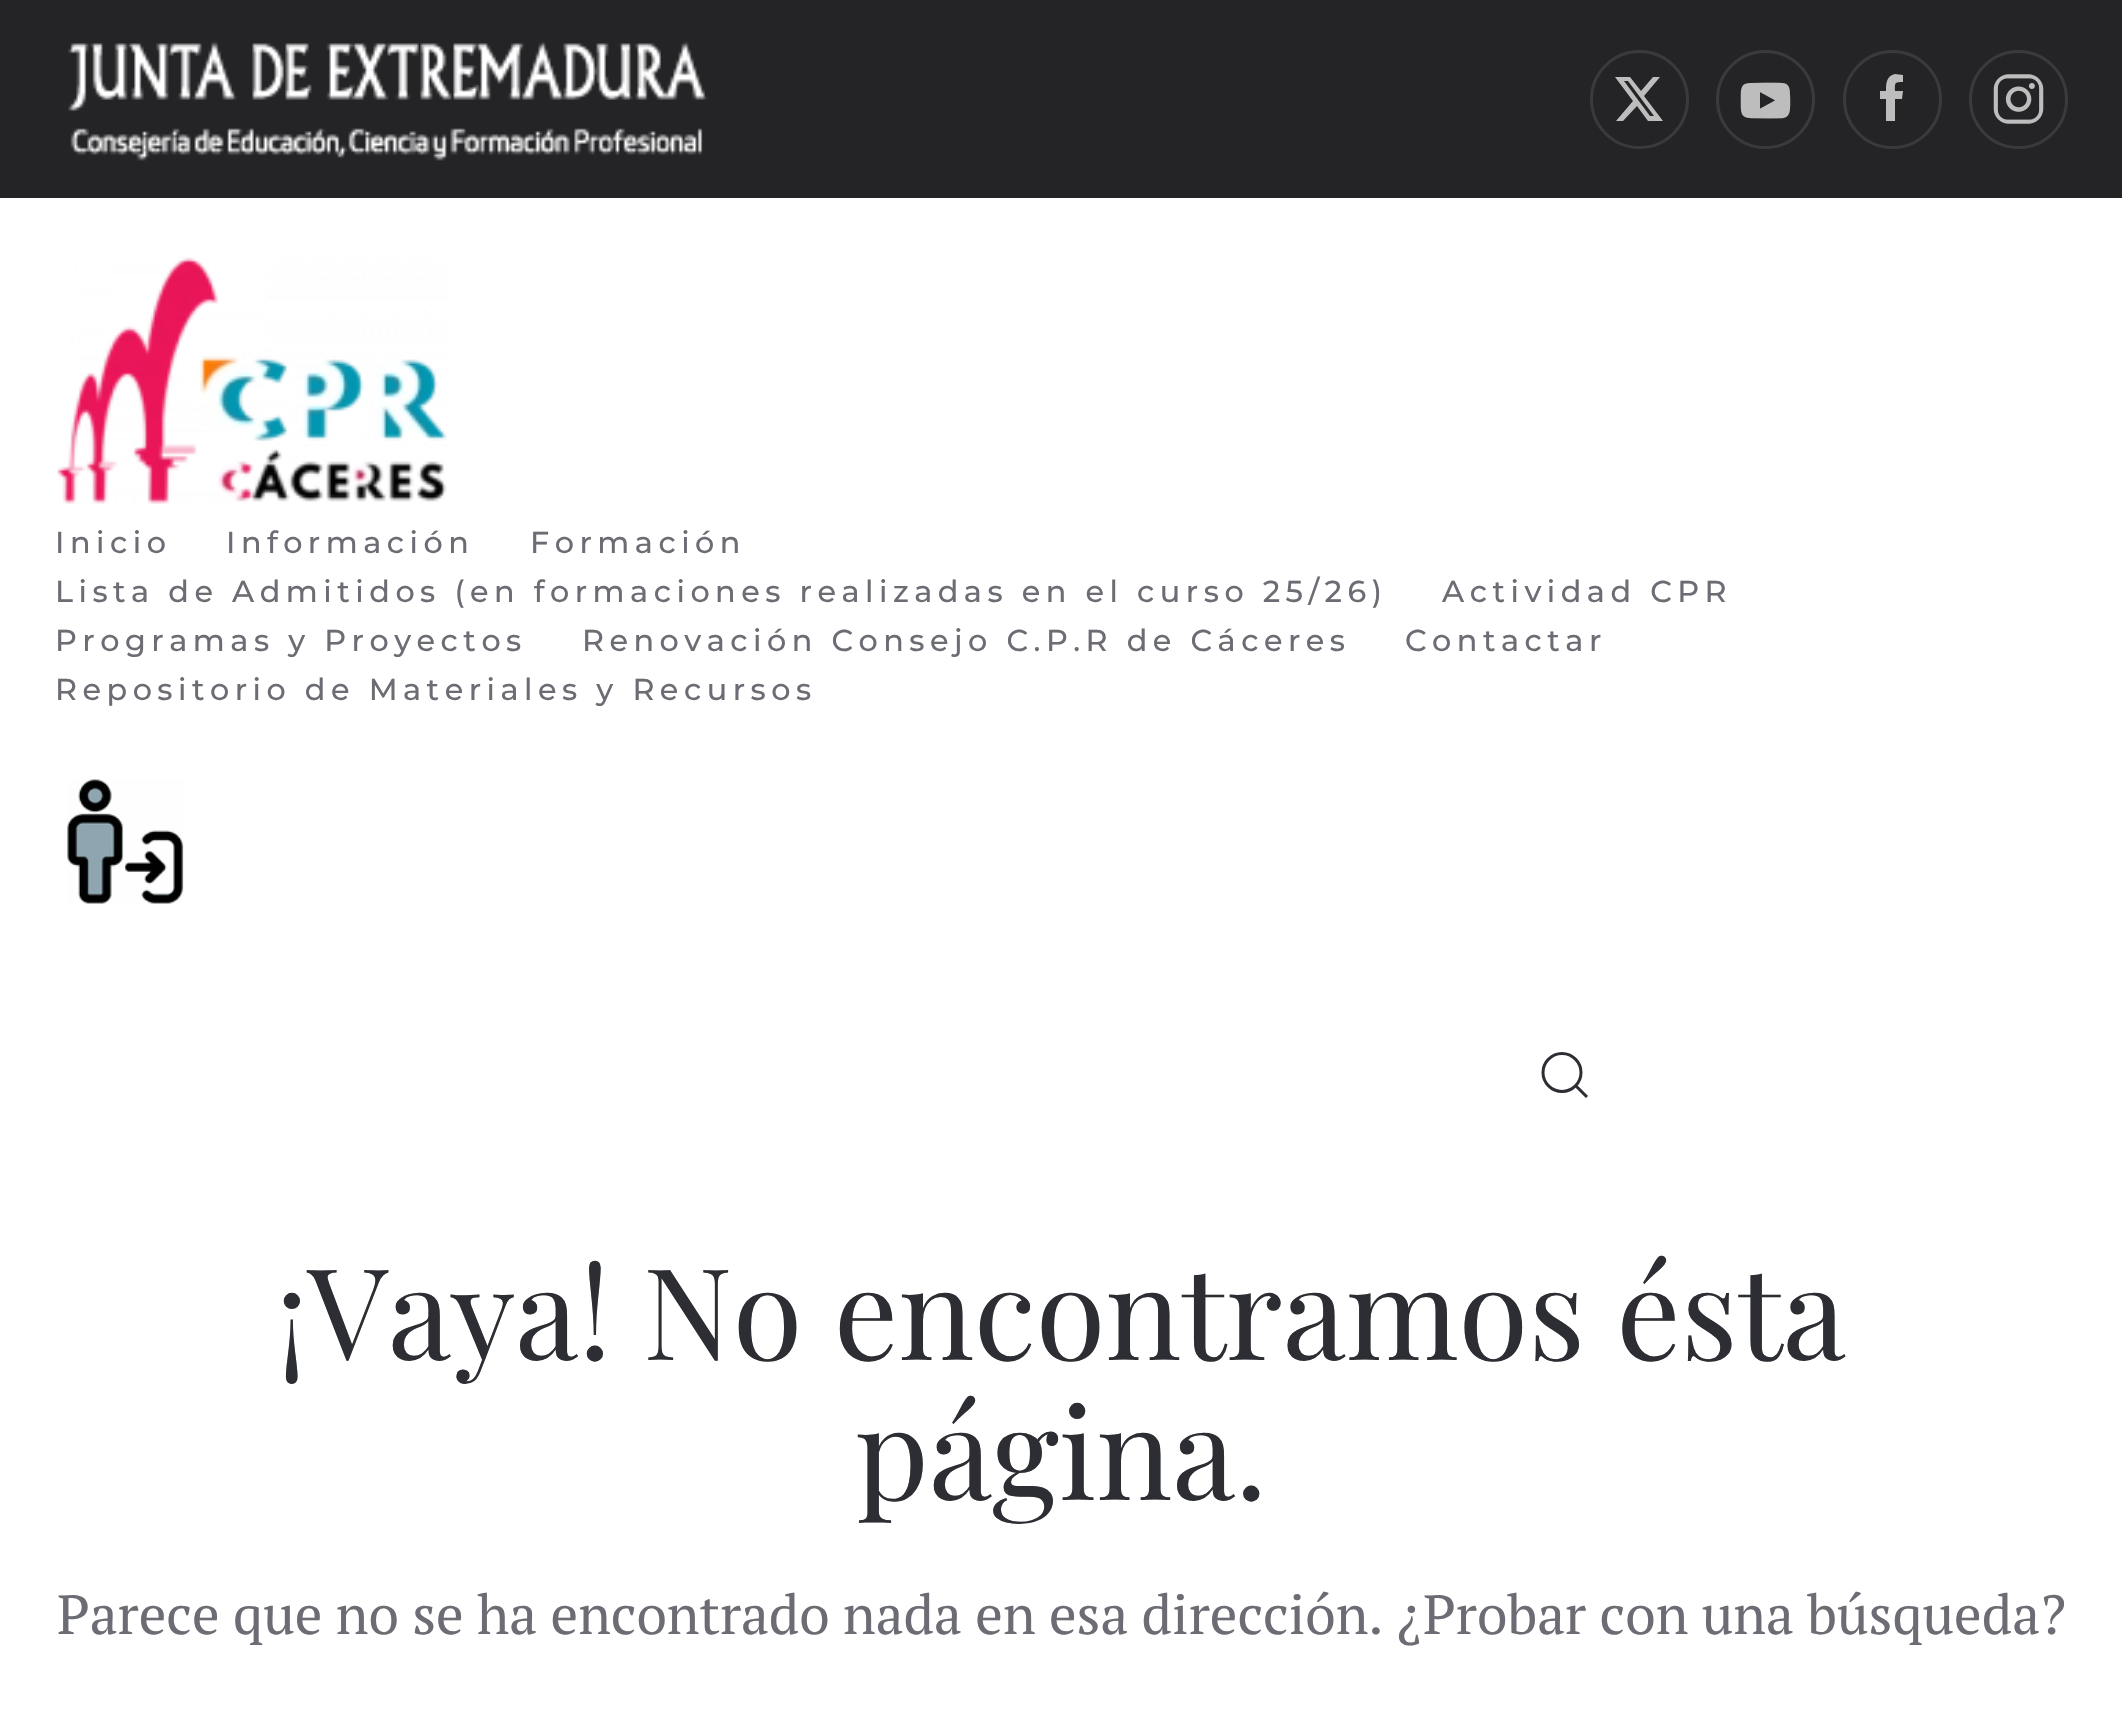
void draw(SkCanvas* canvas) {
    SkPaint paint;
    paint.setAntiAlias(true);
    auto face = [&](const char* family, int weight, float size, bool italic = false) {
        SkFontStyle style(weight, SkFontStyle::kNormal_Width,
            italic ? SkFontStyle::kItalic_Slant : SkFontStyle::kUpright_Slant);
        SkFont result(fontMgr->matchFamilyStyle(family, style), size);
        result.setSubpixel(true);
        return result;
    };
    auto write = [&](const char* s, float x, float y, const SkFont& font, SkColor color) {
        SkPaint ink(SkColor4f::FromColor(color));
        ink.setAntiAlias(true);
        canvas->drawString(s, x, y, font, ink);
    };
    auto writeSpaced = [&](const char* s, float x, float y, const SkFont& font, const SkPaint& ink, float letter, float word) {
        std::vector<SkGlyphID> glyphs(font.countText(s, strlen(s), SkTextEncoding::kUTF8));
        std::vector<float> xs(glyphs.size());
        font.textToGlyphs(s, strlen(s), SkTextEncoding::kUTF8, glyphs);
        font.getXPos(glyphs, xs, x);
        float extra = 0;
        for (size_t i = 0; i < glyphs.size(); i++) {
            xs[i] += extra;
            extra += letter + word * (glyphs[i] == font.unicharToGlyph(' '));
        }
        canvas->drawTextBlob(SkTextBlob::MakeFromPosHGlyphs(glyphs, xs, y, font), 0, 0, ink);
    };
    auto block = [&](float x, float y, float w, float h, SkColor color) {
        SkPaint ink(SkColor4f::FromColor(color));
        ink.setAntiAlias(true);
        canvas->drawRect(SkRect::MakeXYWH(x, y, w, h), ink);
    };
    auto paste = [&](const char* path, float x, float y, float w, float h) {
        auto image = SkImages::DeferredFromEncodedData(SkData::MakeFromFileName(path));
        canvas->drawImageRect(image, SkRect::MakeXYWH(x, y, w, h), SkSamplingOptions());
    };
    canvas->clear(SK_ColorWHITE);
    block(0, 0, 2122, 198, SkColorSetRGB(36, 36, 39));
    paste("pic1.png", 68, 41, 640, 120);
    paint.setStyle(SkPaint::kStroke_Style);
    paint.setStrokeWidth(3);
    paint.setColor(SkColorSetRGB(58, 58, 61));
    canvas->drawCircle(1639.5f, 99.5f, 48, paint);
    paint.setStyle(SkPaint::kFill_Style);
    paint.setColor(SkColorSetRGB(189, 189, 190));
    canvas->drawPath(SkPathBuilder().moveTo(1653, 77).lineTo(1660, 77).lineTo(1644, 96).lineTo(1663, 121).lineTo(1648, 121).lineTo(1637, 106).lineTo(1623, 121).lineTo(1616, 121).lineTo(1633, 101).lineTo(1615, 77).lineTo(1630, 77).lineTo(1641, 91).close().moveTo(1650, 116).lineTo(1654, 116).lineTo(1628, 81).lineTo(1624, 81).close().detach(), paint);
    paint.setStyle(SkPaint::kStroke_Style);
    paint.setColor(SkColorSetRGB(58, 58, 61));
    canvas->drawCircle(1765.5f, 99.5f, 48, paint);
    paste("pic2.png", 1740, 82, 51, 37);
    canvas->drawCircle(1892.5f, 99.5f, 48, paint);
    paint.setStyle(SkPaint::kFill_Style);
    paint.setColor(SkColorSetRGB(189, 189, 190));
    canvas->drawPath(SkPathBuilder().moveTo(1895, 99).lineTo(1902, 99).lineTo(1903, 91).lineTo(1895, 91).cubicTo(1895, 83, 1894, 82, 1903, 82).lineTo(1903, 75).lineTo(1895, 74).cubicTo(1886, 76, 1886, 84, 1886, 91).lineTo(1880, 91).lineTo(1880, 99).lineTo(1886, 99).lineTo(1886, 121).lineTo(1895, 121).close().detach(), paint);
    paint.setStyle(SkPaint::kStroke_Style);
    paint.setColor(SkColorSetRGB(58, 58, 61));
    canvas->drawCircle(2018.5f, 99.5f, 48, paint);
    paste("pic3.png", 1993, 74, 51, 50);
    paste("pic4.png", 57, 257, 390, 247);
    auto kFont1 = face("Montserrat", 100, 30.25f);
    paint.setStyle(SkPaint::kFill_Style);
    paint.setColor(SkColorSetRGB(108, 109, 116));
    writeSpaced("Inicio", 55, 553, kFont1, paint, 5.5f, 0);
    writeSpaced("Información", 226, 553, kFont1, paint, 5.5f, 0);
    writeSpaced("Formación", 530, 553, kFont1, paint, 5.5f, 0);
    writeSpaced("Lista de Admitidos (en formaciones realizadas en el curso 25/26)", 55, 602, kFont1, paint, 5.5f, 0);
    writeSpaced("Actividad CPR", 1442, 602, kFont1, paint, 5.5f, 0);
    writeSpaced("Programas y Proyectos", 55, 651, kFont1, paint, 5.5f, 0);
    writeSpaced("Renovación Consejo C.P.R de Cáceres", 582, 651, kFont1, paint, 5.5f, 0);
    writeSpaced("Contactar", 1405, 651, kFont1, paint, 5.5f, 0);
    writeSpaced("Repositorio de Materiales y Recursos", 55, 700, kFont1, paint, 5.5f, 0);
    paste("pic5.png", 67, 779, 117, 125);
    paint.setStyle(SkPaint::kStroke_Style);
    paint.setColor(SkColorSetRGB(45, 46, 51));
    canvas->drawCircle(1562, 1072.5f, 19, paint);
    canvas->drawPath(SkPathBuilder().moveTo(1576, 1086).lineTo(1587, 1097).close().detach(), paint);
    auto kFont2 = face("Playfair Display", 400, 127);
    write("¡Vaya! No encontramos ésta", 276, 1360, kFont2, SkColorSetRGB(45, 46, 51));
    write("página.", 855, 1500, kFont2, SkColorSetRGB(45, 46, 51));
    auto kFont3 = face("PT Serif", 400, 55);
    write("Parece que no se ha encontrado nada en esa dirección. ¿Probar con una búsqueda?", 57, 1634, kFont3, SkColorSetRGB(108, 109, 116));
}
